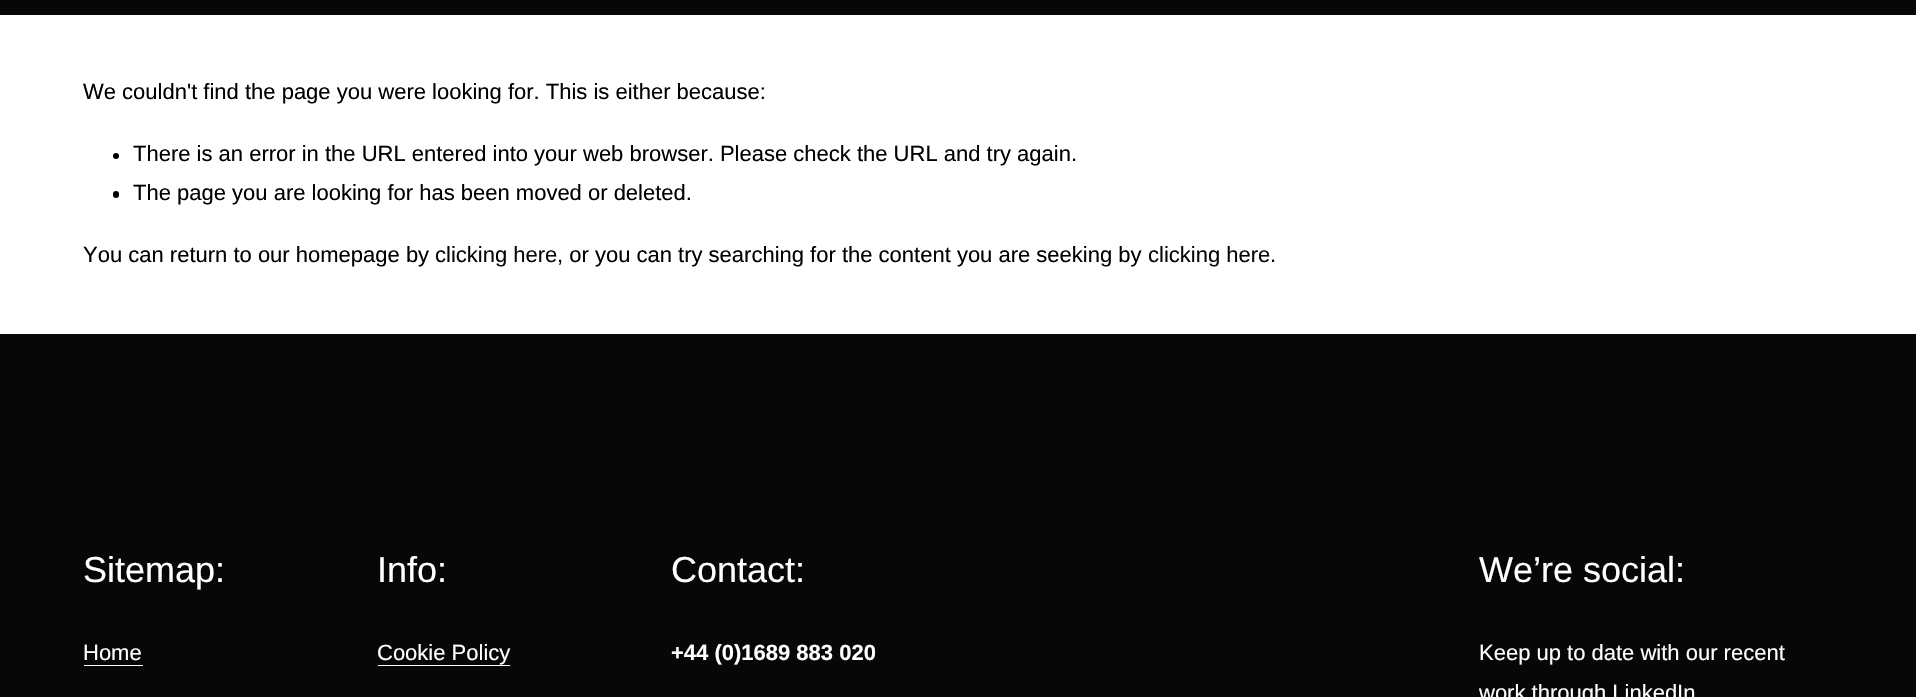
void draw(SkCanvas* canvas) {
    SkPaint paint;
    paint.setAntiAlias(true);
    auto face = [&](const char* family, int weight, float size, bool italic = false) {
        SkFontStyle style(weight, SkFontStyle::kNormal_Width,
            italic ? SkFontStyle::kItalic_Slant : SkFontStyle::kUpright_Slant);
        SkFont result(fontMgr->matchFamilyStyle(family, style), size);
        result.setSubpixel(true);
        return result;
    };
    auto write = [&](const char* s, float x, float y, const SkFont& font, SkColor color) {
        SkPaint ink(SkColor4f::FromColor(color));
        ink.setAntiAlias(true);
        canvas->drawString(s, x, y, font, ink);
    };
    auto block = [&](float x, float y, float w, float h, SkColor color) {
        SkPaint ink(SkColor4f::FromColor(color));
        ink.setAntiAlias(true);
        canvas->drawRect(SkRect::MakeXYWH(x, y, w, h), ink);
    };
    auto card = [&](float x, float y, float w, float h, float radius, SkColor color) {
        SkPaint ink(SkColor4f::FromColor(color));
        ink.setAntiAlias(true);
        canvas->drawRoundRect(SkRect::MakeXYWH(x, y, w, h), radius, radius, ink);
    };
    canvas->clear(SK_ColorWHITE);
    block(0, 0, 1916, 15, SkColorSetRGB(7, 7, 7));
    auto kFont1 = face("Liberation Sans", 400, 22);
    write("We couldn't find the page you were looking for. This is either because:", 83, 99, kFont1, SK_ColorBLACK);
    paint.setColor(SK_ColorBLACK);
    canvas->drawCircle(116, 156, 3, paint);
    write("There is an error in the URL entered into your web browser. Please check the URL and try again.", 133, 161, kFont1, SK_ColorBLACK);
    card(113, 191, 6, 7, 3, SK_ColorBLACK);
    write("The page you are looking for has been moved or deleted.", 133, 200, kFont1, SK_ColorBLACK);
    write("You can return to our homepage by", 83, 262, kFont1, SK_ColorBLACK);
    write("clicking here", 435, 262, kFont1, SkColorSetRGB(7, 7, 7));
    write(", or you can try searching for the content you are seeking by", 557, 262, kFont1, SK_ColorBLACK);
    write("clicking here", 1148, 262, kFont1, SkColorSetRGB(7, 7, 7));
    write(".", 1270, 262, kFont1, SK_ColorBLACK);
    block(0, 334, 1916, 363, SkColorSetRGB(7, 7, 7));
    auto kFont2 = face("Liberation Sans", 400, 36);
    write("Sitemap:", 83, 582, kFont2, SK_ColorWHITE);
    write("Home", 83, 660, kFont1, SK_ColorWHITE);
    block(84, 665, 59, 1, SK_ColorWHITE);
    write("Info:", 377, 582, kFont2, SK_ColorWHITE);
    write("Cookie Policy", 377, 660, kFont1, SK_ColorWHITE);
    block(378, 665, 132, 1, SK_ColorWHITE);
    write("Contact:", 671, 582, kFont2, SK_ColorWHITE);
    auto kFont3 = face("Liberation Sans", 700, 22);
    write("+44 (0)1689 883 020", 671, 660, kFont3, SK_ColorWHITE);
    write("We’re social:", 1479, 582, kFont2, SK_ColorWHITE);
    write("Keep up to date with our recent", 1479, 660, kFont1, SK_ColorWHITE);
    write("work through LinkedIn", 1479, 700, kFont1, SK_ColorWHITE);
}
